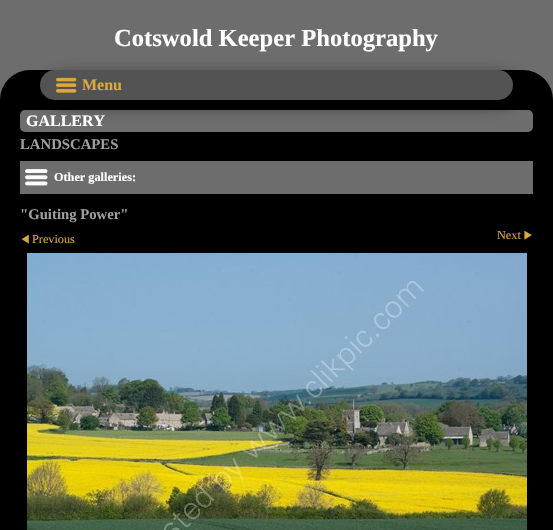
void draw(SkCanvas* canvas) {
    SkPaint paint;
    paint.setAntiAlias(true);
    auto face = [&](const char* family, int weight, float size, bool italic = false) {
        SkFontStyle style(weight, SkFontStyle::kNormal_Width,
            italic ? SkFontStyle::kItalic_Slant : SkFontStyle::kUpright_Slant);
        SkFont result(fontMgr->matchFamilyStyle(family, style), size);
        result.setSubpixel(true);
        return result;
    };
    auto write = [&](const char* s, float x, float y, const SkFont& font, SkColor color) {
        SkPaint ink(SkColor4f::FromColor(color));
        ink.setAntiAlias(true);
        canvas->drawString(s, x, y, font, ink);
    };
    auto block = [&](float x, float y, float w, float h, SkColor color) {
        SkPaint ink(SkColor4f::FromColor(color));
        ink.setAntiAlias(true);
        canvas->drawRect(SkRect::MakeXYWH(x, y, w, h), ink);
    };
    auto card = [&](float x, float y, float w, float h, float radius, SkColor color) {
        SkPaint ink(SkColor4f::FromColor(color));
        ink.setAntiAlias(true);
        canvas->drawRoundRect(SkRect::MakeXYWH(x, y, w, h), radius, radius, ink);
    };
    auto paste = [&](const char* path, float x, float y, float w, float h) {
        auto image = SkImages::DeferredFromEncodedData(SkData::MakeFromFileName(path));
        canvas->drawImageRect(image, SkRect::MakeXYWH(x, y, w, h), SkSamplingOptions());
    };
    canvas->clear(SkColorSetRGB(109, 109, 109));
    auto kFont1 = face("Liberation Serif", 700, 24.6f);
    write("Cotswold Keeper Photography", 114, 46, kFont1, SK_ColorWHITE);
    card(0, 70, 553, 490, 30, SK_ColorBLACK);
    card(20, 110, 513, 22, 5, SkColorSetRGB(109, 109, 109));
    paint.setColor(SK_ColorBLACK);
    paint.setMaskFilter(SkMaskFilter::MakeBlur(kNormal_SkBlurStyle, 10));
    canvas->drawRoundRect(SkRect::MakeXYWH(50, 80, 463, 20), 10, 10, paint);
    paint.setMaskFilter(nullptr);
    card(40, 70, 473, 30, 15, SkColorSetRGB(83, 83, 83));
    paste("pic1.png", 56, 77, 21, 16);
    auto kFont2 = face("Liberation Serif", 700, 16);
    write("Menu", 82, 90, kFont2, SkColorSetRGB(222, 169, 59));
    write("GALLERY", 26, 126, kFont2, SK_ColorWHITE);
    auto kFont3 = face("Liberation Serif", 700, 14.75f);
    write("LANDSCAPES", 20, 149, kFont3, SkColorSetRGB(159, 159, 159));
    block(20, 161, 513, 33, SkColorSetRGB(109, 109, 109));
    paste("pic2.png", 25, 169, 23, 17);
    auto kFont4 = face("Liberation Serif", 700, 12.25f);
    write("Other galleries:", 54, 181, kFont4, SK_ColorWHITE);
    write("\"Guiting Power\"", 20, 219, kFont3, SkColorSetRGB(159, 159, 159));
    paste("pic3.png", 21, 234, 8, 10);
    auto kFont5 = face("Liberation Serif", 400, 12.25f);
    write("Previous", 32, 243, kFont5, SkColorSetRGB(222, 169, 59));
    write("Next", 497, 239, kFont5, SkColorSetRGB(222, 169, 59));
    paste("pic4.png", 524, 230, 8, 10);
    paste("pic5.png", 27, 253, 500, 277);
}
